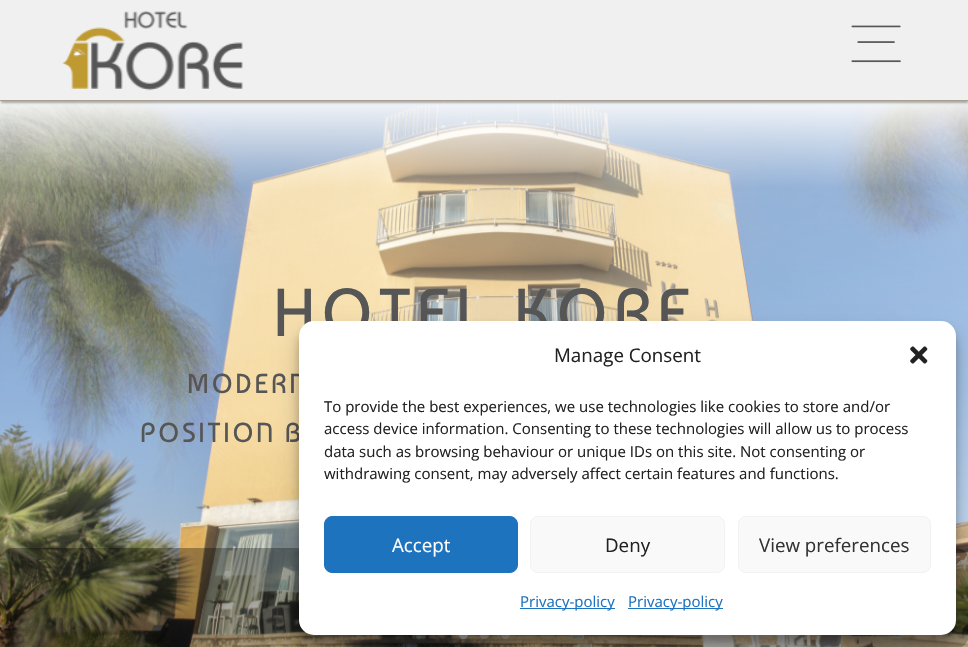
void draw(SkCanvas* canvas) {
    SkPaint paint;
    paint.setAntiAlias(true);
    auto face = [&](const char* family, int weight, float size, bool italic = false) {
        SkFontStyle style(weight, SkFontStyle::kNormal_Width,
            italic ? SkFontStyle::kItalic_Slant : SkFontStyle::kUpright_Slant);
        SkFont result(fontMgr->matchFamilyStyle(family, style), size);
        result.setSubpixel(true);
        return result;
    };
    auto write = [&](const char* s, float x, float y, const SkFont& font, SkColor color) {
        SkPaint ink(SkColor4f::FromColor(color));
        ink.setAntiAlias(true);
        canvas->drawString(s, x, y, font, ink);
    };
    auto writeSpaced = [&](const char* s, float x, float y, const SkFont& font, const SkPaint& ink, float letter, float word) {
        std::vector<SkGlyphID> glyphs(font.countText(s, strlen(s), SkTextEncoding::kUTF8));
        std::vector<float> xs(glyphs.size());
        font.textToGlyphs(s, strlen(s), SkTextEncoding::kUTF8, glyphs);
        font.getXPos(glyphs, xs, x);
        float extra = 0;
        for (size_t i = 0; i < glyphs.size(); i++) {
            xs[i] += extra;
            extra += letter + word * (glyphs[i] == font.unicharToGlyph(' '));
        }
        canvas->drawTextBlob(SkTextBlob::MakeFromPosHGlyphs(glyphs, xs, y, font), 0, 0, ink);
    };
    auto block = [&](float x, float y, float w, float h, SkColor color) {
        SkPaint ink(SkColor4f::FromColor(color));
        ink.setAntiAlias(true);
        canvas->drawRect(SkRect::MakeXYWH(x, y, w, h), ink);
    };
    auto card = [&](float x, float y, float w, float h, float radius, SkColor color) {
        SkPaint ink(SkColor4f::FromColor(color));
        ink.setAntiAlias(true);
        canvas->drawRoundRect(SkRect::MakeXYWH(x, y, w, h), radius, radius, ink);
    };
    auto paste = [&](const char* path, float x, float y, float w, float h) {
        auto image = SkImages::DeferredFromEncodedData(SkData::MakeFromFileName(path));
        canvas->drawImageRect(image, SkRect::MakeXYWH(x, y, w, h), SkSamplingOptions());
    };
    canvas->clear(SK_ColorWHITE);
    paste("pic3.png", 0, 101, 968, 546);
    paint.setColor(SkColorSetARGB(77, 0, 0, 0));
    paint.setMaskFilter(SkMaskFilter::MakeBlur(kNormal_SkBlurStyle, 1));
    canvas->drawRect(SkRect::MakeXYWH(1, 4, 967, 99), paint);
    paint.setMaskFilter(nullptr);
    block(0, 0, 968, 100, SkColorSetRGB(240, 240, 240));
    block(0, 100, 968, 1, SkColorSetRGB(168, 159, 144));
    paste("pic1.png", 62, 11, 181, 80);
    paste("pic2.png", 851, 25, 50, 38);
    auto kFont1 = face("Baumans", 400, 67.5f);
    paint.setColor(SkColorSetRGB(87, 86, 86));
    writeSpaced("HOTEL KORE", 273, 336, kFont1, paint, 5, 0);
    auto kFont2 = face("Baumans", 400, 27.5f);
    writeSpaced("MODERN", 187, 393, kFont2, paint, 2.5f, 0);
    writeSpaced("POSITION B", 140, 442, kFont2, paint, 2.5f, 0);
    paint.setColor(SK_ColorWHITE);
    canvas->drawCircle(463.5f, 634.5f, 4.5f, paint);
    paint.setColor(SkColorSetARGB(128, 255, 255, 255));
    canvas->drawCircle(484.5f, 634.5f, 4.5f, paint);
    canvas->drawCircle(505.5f, 634.5f, 4.5f, paint);
    canvas->save();
    canvas->clipPath(SkPathBuilder(SkPathFillType::kEvenOdd).moveTo(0, 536).lineTo(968, 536).lineTo(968, 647).lineTo(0, 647).close().moveTo(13, 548).lineTo(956, 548).cubicTo(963, 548, 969, 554, 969, 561).lineTo(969, 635).cubicTo(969, 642, 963, 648, 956, 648).lineTo(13, 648).cubicTo(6, 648, 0, 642, 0, 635).lineTo(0, 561).cubicTo(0, 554, 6, 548, 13, 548).close().detach(), true);
    paint.setColor(SkColorSetARGB(77, 0, 0, 0));
    paint.setMaskFilter(SkMaskFilter::MakeBlur(kNormal_SkBlurStyle, 11));
    canvas->drawRoundRect(SkRect::MakeXYWH(8, 570, 953, 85), 5, 5, paint);
    paint.setMaskFilter(nullptr);
    canvas->restore();
    card(0, 548, 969, 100, 13, SkColorSetARGB(82, 0, 0, 0));
    paint.setColor(SkColorSetARGB(59, 0, 0, 0));
    paint.setMaskFilter(SkMaskFilter::MakeBlur(kNormal_SkBlurStyle, 4));
    canvas->drawRoundRect(SkRect::MakeXYWH(299, 329, 657, 314), 15, 15, paint);
    paint.setMaskFilter(nullptr);
    paint.setColor(SkColorSetARGB(48, 0, 0, 0));
    paint.setMaskFilter(SkMaskFilter::MakeBlur(kNormal_SkBlurStyle, 12.5f));
    canvas->drawRoundRect(SkRect::MakeXYWH(299, 334, 657, 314), 15, 15, paint);
    paint.setMaskFilter(nullptr);
    card(299, 321, 657, 314, 15, SK_ColorWHITE);
    auto kFont3 = face("Open Sans", 400, 18.75f);
    write("Manage Consent", 554, 362, kFont3, SkColorSetRGB(34, 34, 34));
    paste("pic4.png", 910, 346, 18, 18);
    auto kFont4 = face("Open Sans", 400, 15);
    write("To provide the best experiences, we use technologies like cookies to store and/or", 324, 412, kFont4, SkColorSetRGB(34, 34, 34));
    write("access device information. Consenting to these technologies will allow us to process", 324, 434, kFont4, SkColorSetRGB(34, 34, 34));
    write("data such as browsing behaviour or unique IDs on this site. Not consenting or", 324, 457, kFont4, SkColorSetRGB(34, 34, 34));
    write("withdrawing consent, may adversely affect certain features and functions.", 324, 479, kFont4, SkColorSetRGB(34, 34, 34));
    paint.setColor(SkColorSetRGB(30, 115, 190));
    canvas->drawRoundRect(SkRect::MakeXYWH(324.5f, 516.5f, 193, 56), 7.5f, 7.5f, paint);
    paint.setStyle(SkPaint::kStroke_Style);
    paint.setStrokeWidth(1);
    canvas->drawRoundRect(SkRect::MakeXYWH(324.5f, 516.5f, 193, 56), 7.5f, 7.5f, paint);
    write("Accept", 392, 552, kFont3, SK_ColorWHITE);
    paint.setStyle(SkPaint::kFill_Style);
    paint.setColor(SkColorSetRGB(249, 249, 249));
    canvas->drawRoundRect(SkRect::MakeXYWH(530.5f, 516.5f, 194, 56), 7.5f, 7.5f, paint);
    paint.setStyle(SkPaint::kStroke_Style);
    paint.setColor(SkColorSetRGB(242, 242, 242));
    canvas->drawRoundRect(SkRect::MakeXYWH(530.5f, 516.5f, 194, 56), 7.5f, 7.5f, paint);
    write("Deny", 605, 552, kFont3, SkColorSetRGB(34, 34, 34));
    paint.setStyle(SkPaint::kFill_Style);
    paint.setColor(SkColorSetRGB(249, 249, 249));
    canvas->drawRoundRect(SkRect::MakeXYWH(738.5f, 516.5f, 192, 56), 7.5f, 7.5f, paint);
    paint.setStyle(SkPaint::kStroke_Style);
    paint.setColor(SkColorSetRGB(242, 242, 242));
    canvas->drawRoundRect(SkRect::MakeXYWH(738.5f, 516.5f, 192, 56), 7.5f, 7.5f, paint);
    write("View preferences", 759, 552, kFont3, SkColorSetRGB(51, 51, 51));
    block(520, 608, 95, 1, SkColorSetRGB(30, 115, 190));
    write("Privacy-policy", 520, 607, kFont4, SkColorSetRGB(30, 115, 190));
    block(628, 608, 95, 1, SkColorSetRGB(30, 115, 190));
    write("Privacy-policy", 628, 607, kFont4, SkColorSetRGB(30, 115, 190));
}
